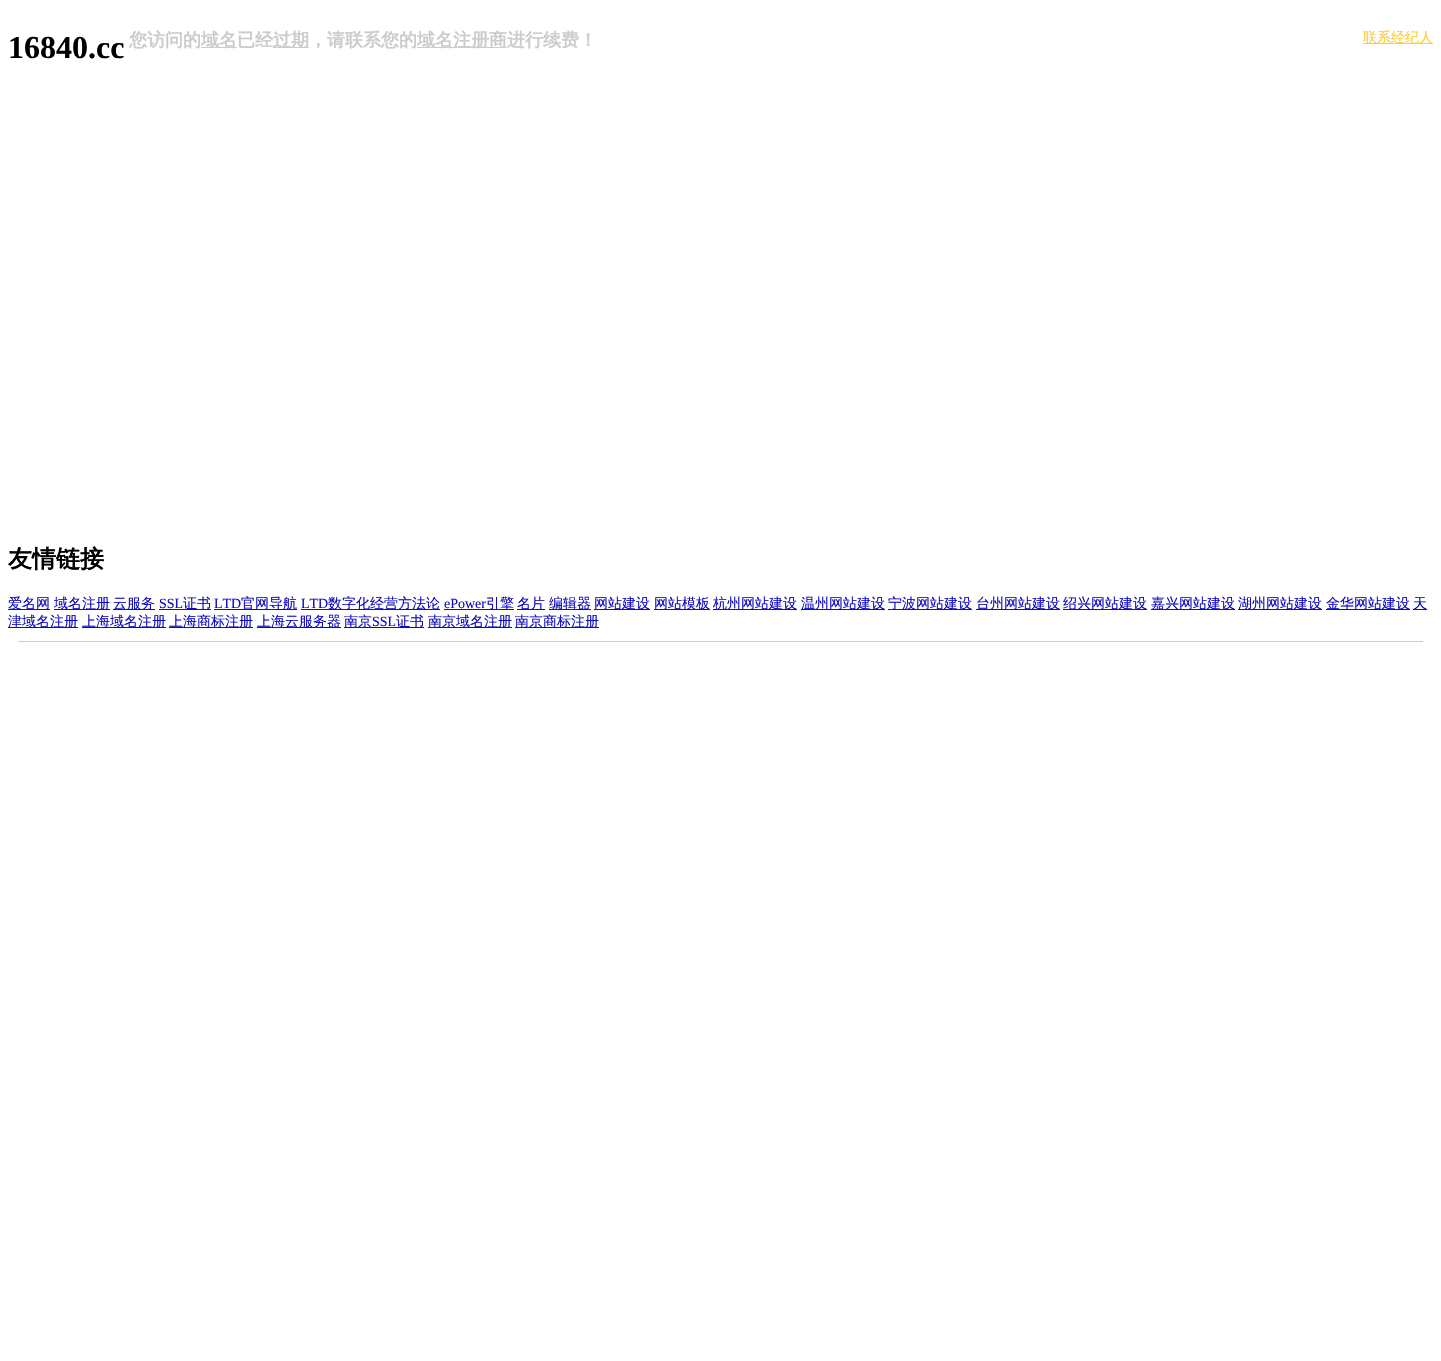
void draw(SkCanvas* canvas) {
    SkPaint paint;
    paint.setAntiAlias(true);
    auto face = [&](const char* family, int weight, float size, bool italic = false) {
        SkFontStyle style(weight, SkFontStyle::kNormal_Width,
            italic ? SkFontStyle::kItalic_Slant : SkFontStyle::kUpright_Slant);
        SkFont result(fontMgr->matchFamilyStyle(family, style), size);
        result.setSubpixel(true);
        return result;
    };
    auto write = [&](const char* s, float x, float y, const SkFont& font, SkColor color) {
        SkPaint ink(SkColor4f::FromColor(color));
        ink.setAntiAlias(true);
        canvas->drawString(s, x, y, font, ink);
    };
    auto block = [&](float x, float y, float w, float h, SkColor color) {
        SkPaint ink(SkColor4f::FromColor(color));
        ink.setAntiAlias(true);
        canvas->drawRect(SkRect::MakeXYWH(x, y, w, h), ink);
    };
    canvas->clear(SK_ColorWHITE);
    auto kFont1 = face("Liberation Serif", 700, 32);
    write("16840.cc", 8, 58, kFont1, SK_ColorBLACK);
    auto kFont2 = face("WenQuanYi Zen Hei", 700, 18);
    write("您访问的", 129, 46, kFont2, SkColorSetRGB(204, 204, 204));
    block(201, 47, 36, 1, SkColorSetRGB(204, 204, 204));
    write("域名已经", 201, 46, kFont2, SkColorSetRGB(204, 204, 204));
    block(273, 47, 36, 1, SkColorSetRGB(204, 204, 204));
    write("过期，请联系您的", 273, 46, kFont2, SkColorSetRGB(204, 204, 204));
    block(417, 47, 90, 1, SkColorSetRGB(204, 204, 204));
    write("域名注册商进行续费！", 417, 46, kFont2, SkColorSetRGB(204, 204, 204));
    block(1363, 43, 70, 1, SkColorSetRGB(255, 204, 51));
    auto kFont3 = face("WenQuanYi Zen Hei", 500, 14);
    write("联系经纪人", 1363, 42, kFont3, SkColorSetRGB(255, 204, 51));
    auto kFont4 = face("WenQuanYi Zen Hei", 700, 24);
    write("友情链接", 8, 567, kFont4, SK_ColorBLACK);
    block(8, 609, 42, 1, SkColorSetRGB(15, 12, 191));
    write("爱名网", 8, 608, kFont3, SkColorSetRGB(15, 12, 191));
    block(54, 609, 56, 1, SkColorSetRGB(15, 12, 191));
    write("域名注册", 54, 608, kFont3, SkColorSetRGB(15, 12, 191));
    block(113, 609, 42, 1, SkColorSetRGB(15, 12, 191));
    write("云服务", 113, 608, kFont3, SkColorSetRGB(15, 12, 191));
    auto kFont5 = face("Liberation Serif", 400, 14);
    write("SSL", 159, 608, kFont5, SkColorSetRGB(15, 12, 191));
    block(159, 609, 52, 1, SkColorSetRGB(15, 12, 191));
    write("证书", 183, 608, kFont3, SkColorSetRGB(15, 12, 191));
    write("LTD", 214, 608, kFont5, SkColorSetRGB(15, 12, 191));
    block(214, 609, 83, 1, SkColorSetRGB(15, 12, 191));
    write("官网导航", 241, 608, kFont3, SkColorSetRGB(15, 12, 191));
    write("LTD", 301, 608, kFont5, SkColorSetRGB(15, 12, 191));
    block(301, 609, 139, 1, SkColorSetRGB(15, 12, 191));
    write("数字化经营方法论", 328, 608, kFont3, SkColorSetRGB(15, 12, 191));
    write("ePower", 444, 608, kFont5, SkColorSetRGB(15, 12, 191));
    block(444, 609, 70, 1, SkColorSetRGB(15, 12, 191));
    write("引擎", 486, 608, kFont3, SkColorSetRGB(15, 12, 191));
    block(517, 609, 28, 1, SkColorSetRGB(15, 12, 191));
    write("名片", 517, 608, kFont3, SkColorSetRGB(15, 12, 191));
    block(549, 609, 42, 1, SkColorSetRGB(15, 12, 191));
    write("编辑器", 549, 608, kFont3, SkColorSetRGB(15, 12, 191));
    block(594, 609, 56, 1, SkColorSetRGB(15, 12, 191));
    write("网站建设", 594, 608, kFont3, SkColorSetRGB(15, 12, 191));
    block(654, 609, 56, 1, SkColorSetRGB(15, 12, 191));
    write("网站模板", 654, 608, kFont3, SkColorSetRGB(15, 12, 191));
    block(713, 609, 84, 1, SkColorSetRGB(15, 12, 191));
    write("杭州网站建设", 713, 608, kFont3, SkColorSetRGB(15, 12, 191));
    block(801, 609, 84, 1, SkColorSetRGB(15, 12, 191));
    write("温州网站建设", 801, 608, kFont3, SkColorSetRGB(15, 12, 191));
    block(888, 609, 84, 1, SkColorSetRGB(15, 12, 191));
    write("宁波网站建设", 888, 608, kFont3, SkColorSetRGB(15, 12, 191));
    block(976, 609, 84, 1, SkColorSetRGB(15, 12, 191));
    write("台州网站建设", 976, 608, kFont3, SkColorSetRGB(15, 12, 191));
    block(1063, 609, 84, 1, SkColorSetRGB(15, 12, 191));
    write("绍兴网站建设", 1063, 608, kFont3, SkColorSetRGB(15, 12, 191));
    block(1151, 609, 84, 1, SkColorSetRGB(15, 12, 191));
    write("嘉兴网站建设", 1151, 608, kFont3, SkColorSetRGB(15, 12, 191));
    block(1238, 609, 84, 1, SkColorSetRGB(15, 12, 191));
    write("湖州网站建设", 1238, 608, kFont3, SkColorSetRGB(15, 12, 191));
    block(1326, 609, 84, 1, SkColorSetRGB(15, 12, 191));
    write("金华网站建设", 1326, 608, kFont3, SkColorSetRGB(15, 12, 191));
    block(1413, 609, 14, 1, SkColorSetRGB(15, 12, 191));
    write("天", 1413, 608, kFont3, SkColorSetRGB(15, 12, 191));
    block(8, 627, 70, 1, SkColorSetRGB(15, 12, 191));
    write("津域名注册", 8, 626, kFont3, SkColorSetRGB(15, 12, 191));
    block(82, 627, 84, 1, SkColorSetRGB(15, 12, 191));
    write("上海域名注册", 82, 626, kFont3, SkColorSetRGB(15, 12, 191));
    block(169, 627, 84, 1, SkColorSetRGB(15, 12, 191));
    write("上海商标注册", 169, 626, kFont3, SkColorSetRGB(15, 12, 191));
    block(257, 627, 84, 1, SkColorSetRGB(15, 12, 191));
    write("上海云服务器", 257, 626, kFont3, SkColorSetRGB(15, 12, 191));
    block(344, 627, 80, 1, SkColorSetRGB(15, 12, 191));
    write("南京", 344, 626, kFont3, SkColorSetRGB(15, 12, 191));
    write("SSL", 372, 626, kFont5, SkColorSetRGB(15, 12, 191));
    write("证书", 396, 626, kFont3, SkColorSetRGB(15, 12, 191));
    block(428, 627, 84, 1, SkColorSetRGB(15, 12, 191));
    write("南京域名注册", 428, 626, kFont3, SkColorSetRGB(15, 12, 191));
    block(515, 627, 84, 1, SkColorSetRGB(15, 12, 191));
    write("南京商标注册", 515, 626, kFont3, SkColorSetRGB(15, 12, 191));
    block(18, 641, 1405, 1, SkColorSetRGB(204, 204, 204));
}
